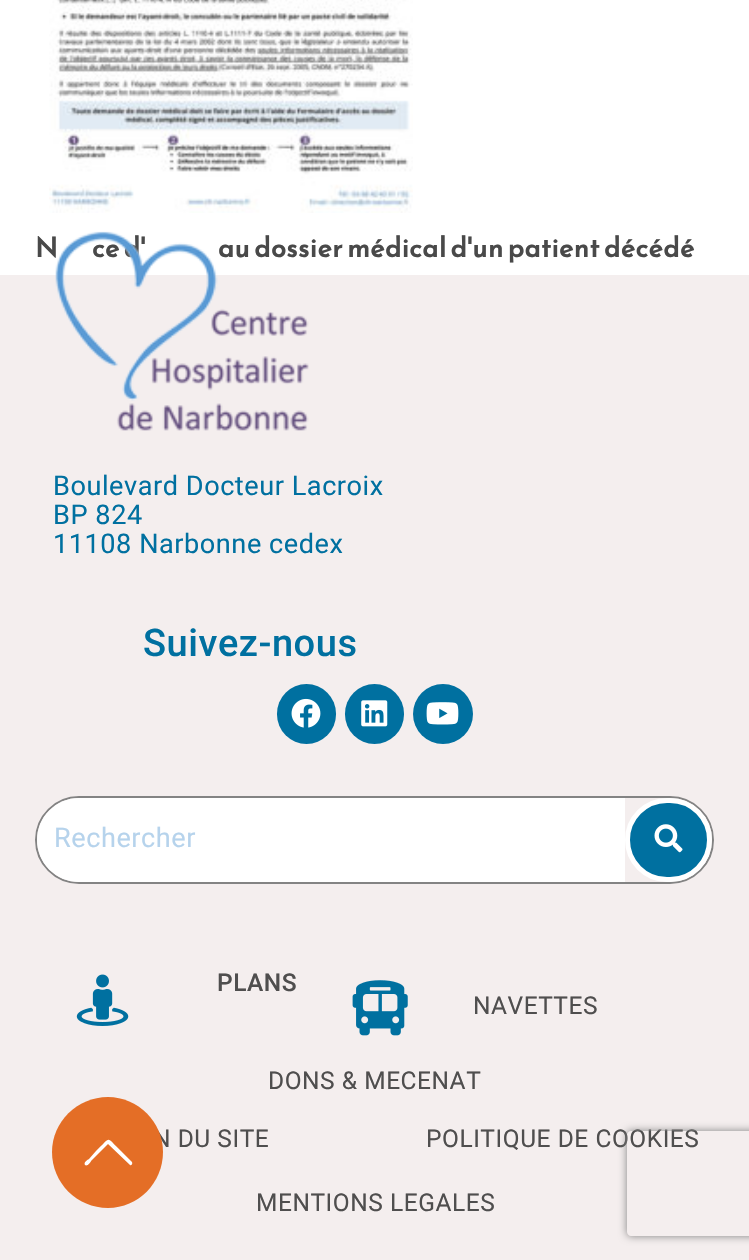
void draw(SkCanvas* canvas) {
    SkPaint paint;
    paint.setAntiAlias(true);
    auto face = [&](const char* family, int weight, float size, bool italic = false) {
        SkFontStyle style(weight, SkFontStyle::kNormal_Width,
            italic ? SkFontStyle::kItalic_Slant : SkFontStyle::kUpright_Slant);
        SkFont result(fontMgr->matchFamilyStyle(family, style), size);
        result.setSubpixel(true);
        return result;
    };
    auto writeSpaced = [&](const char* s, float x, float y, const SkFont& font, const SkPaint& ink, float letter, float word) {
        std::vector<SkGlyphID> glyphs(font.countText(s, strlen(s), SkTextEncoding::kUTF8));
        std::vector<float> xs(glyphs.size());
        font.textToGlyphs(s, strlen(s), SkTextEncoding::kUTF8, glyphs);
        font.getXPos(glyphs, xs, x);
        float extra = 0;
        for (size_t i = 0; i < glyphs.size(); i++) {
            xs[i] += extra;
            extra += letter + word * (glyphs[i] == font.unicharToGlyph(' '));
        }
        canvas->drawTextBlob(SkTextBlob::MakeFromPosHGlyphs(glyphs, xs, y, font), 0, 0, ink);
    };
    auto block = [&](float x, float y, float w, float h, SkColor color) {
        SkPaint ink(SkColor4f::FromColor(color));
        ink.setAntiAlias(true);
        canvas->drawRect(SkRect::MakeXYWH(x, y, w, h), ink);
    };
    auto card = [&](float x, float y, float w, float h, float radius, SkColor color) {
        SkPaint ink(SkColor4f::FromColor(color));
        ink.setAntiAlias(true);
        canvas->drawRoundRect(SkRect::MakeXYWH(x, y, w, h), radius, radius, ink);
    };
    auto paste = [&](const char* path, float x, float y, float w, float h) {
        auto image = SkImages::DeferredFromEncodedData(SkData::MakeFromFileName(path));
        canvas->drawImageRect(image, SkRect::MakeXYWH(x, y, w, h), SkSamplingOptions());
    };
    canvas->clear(SK_ColorWHITE);
    paste("pic1.png", 49, 0, 364, 213);
    auto kFont1 = face("Reem Kufi", 700, 27.1f);
    paint.setColor(SkColorSetRGB(73, 73, 73));
    writeSpaced("N", 35, 257, kFont1, paint, 0.55f, 0);
    writeSpaced("ce d'", 92, 257, kFont1, paint, 0.55f, 0);
    writeSpaced("au dossier médical d'un patient décédé", 218, 257, kFont1, paint, 0.55f, 0);
    block(0, 275, 749, 985, SkColorSetRGB(244, 238, 238));
    paste("pic2.png", 55, 231, 254, 200);
    auto kFont2 = face("Roboto", 400, 27.1f);
    paint.setColor(SkColorSetRGB(0, 112, 160));
    writeSpaced("Boulevard Docteur Lacroix", 53, 495, kFont2, paint, 0.55f, 0);
    writeSpaced("BP 824", 53, 524, kFont2, paint, 0.55f, 0);
    writeSpaced("11108 Narbonne cedex", 53, 553, kFont2, paint, 0.55f, 0);
    auto kFont3 = face("Roboto", 500, 38);
    writeSpaced("Suivez-nous", 143, 656, kFont3, paint, 0.55f, 0);
    card(277, 684, 59, 60, 29.5f, SkColorSetRGB(0, 112, 160));
    paste("pic3.png", 291, 698, 30, 30);
    card(345, 684, 59, 60, 29.5f, SkColorSetRGB(0, 112, 160));
    paste("pic4.png", 361, 700, 27, 27);
    canvas->drawCircle(443, 714, 30, paint);
    paste("pic5.png", 426, 702, 33, 23);
    paint.setStyle(SkPaint::kStroke_Style);
    paint.setStrokeWidth(2);
    paint.setColor(SkColorSetRGB(131, 131, 131));
    canvas->drawRoundRect(SkRect::MakeXYWH(36, 797, 677, 86), 43, 43, paint);
    paint.setStyle(SkPaint::kFill_Style);
    paint.setColor(SK_ColorWHITE);
    canvas->drawPath(SkPathBuilder().moveTo(79, 798).lineTo(625, 798).lineTo(625, 882).lineTo(79, 882).cubicTo(56, 882, 37, 863, 37, 840).cubicTo(37, 817, 56, 798, 79, 798).close().detach(), paint);
    paint.setColor(SkColorSetRGB(182, 211, 236));
    writeSpaced("Rechercher", 54, 847, kFont2, paint, 0.55f, 0);
    paint.setColor(SkColorSetRGB(0, 112, 160));
    canvas->drawRoundRect(SkRect::MakeXYWH(627.5f, 800.5f, 82, 79), 39.5f, 39.5f, paint);
    paint.setStyle(SkPaint::kStroke_Style);
    paint.setStrokeWidth(5);
    paint.setColor(SK_ColorWHITE);
    canvas->drawRoundRect(SkRect::MakeXYWH(627.5f, 800.5f, 82, 79), 39.5f, 39.5f, paint);
    paste("pic6.png", 654, 824, 29, 29);
    paste("pic7.png", 76, 974, 53, 52);
    auto kFont4 = face("Roboto", 500, 24.5f);
    paint.setStyle(SkPaint::kFill_Style);
    paint.setColor(SkColorSetRGB(79, 78, 78));
    writeSpaced("PLANS", 217, 991, kFont4, paint, 0.55f, 0);
    paste("pic8.png", 352, 980, 56, 56);
    auto kFont5 = face("Roboto", 400, 24.5f);
    writeSpaced("NAVETTES", 473, 1014, kFont5, paint, 0.55f, 0);
    writeSpaced("DONS & MECENAT", 268, 1089, kFont5, paint, 0.55f, 0);
    writeSpaced("N DU SITE", 153, 1147, kFont5, paint, 0.55f, 0);
    writeSpaced("POLITIQUE DE COOKIES", 426, 1147, kFont5, paint, 0.55f, 0);
    writeSpaced("MENTIONS LEGALES", 256, 1211, kFont5, paint, 0.55f, 0);
    paint.setColor(SkColorSetRGB(228, 110, 38));
    canvas->drawPath(SkPathBuilder().moveTo(108, 1208).cubicTo(77, 1208, 52, 1183, 52, 1152).cubicTo(52, 1122, 77, 1097, 108, 1097).cubicTo(138, 1097, 163, 1122, 163, 1152).cubicTo(163, 1183, 138, 1208, 108, 1208).close().detach(), paint);
    paint.setColor(SK_ColorWHITE);
    canvas->drawPath(SkPathBuilder().moveTo(85, 1165).cubicTo(87, 1167, 91, 1162, 91, 1161).lineTo(108, 1144).lineTo(130, 1165).cubicTo(131, 1166, 133, 1164, 132, 1162).lineTo(121, 1151).cubicTo(105, 1136, 112, 1136, 96, 1151).lineTo(89, 1159).cubicTo(89, 1159, 83, 1162, 85, 1165).close().detach(), paint);
    canvas->save();
    canvas->clipPath(SkPathBuilder(SkPathFillType::kEvenOdd).moveTo(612, 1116).lineTo(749, 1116).lineTo(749, 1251).lineTo(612, 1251).close().moveTo(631, 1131).lineTo(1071, 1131).cubicTo(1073, 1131, 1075, 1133, 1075, 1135).lineTo(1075, 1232).cubicTo(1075, 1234, 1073, 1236, 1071, 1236).lineTo(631, 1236).cubicTo(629, 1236, 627, 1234, 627, 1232).lineTo(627, 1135).cubicTo(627, 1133, 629, 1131, 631, 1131).close().detach(), true);
    paint.setColor(SkColorSetRGB(128, 128, 128));
    paint.setMaskFilter(SkMaskFilter::MakeBlur(kNormal_SkBlurStyle, 4.5f));
    canvas->drawRoundRect(SkRect::MakeXYWH(627, 1131, 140, 105), 4, 4, paint);
    paint.setMaskFilter(nullptr);
    canvas->restore();
}
